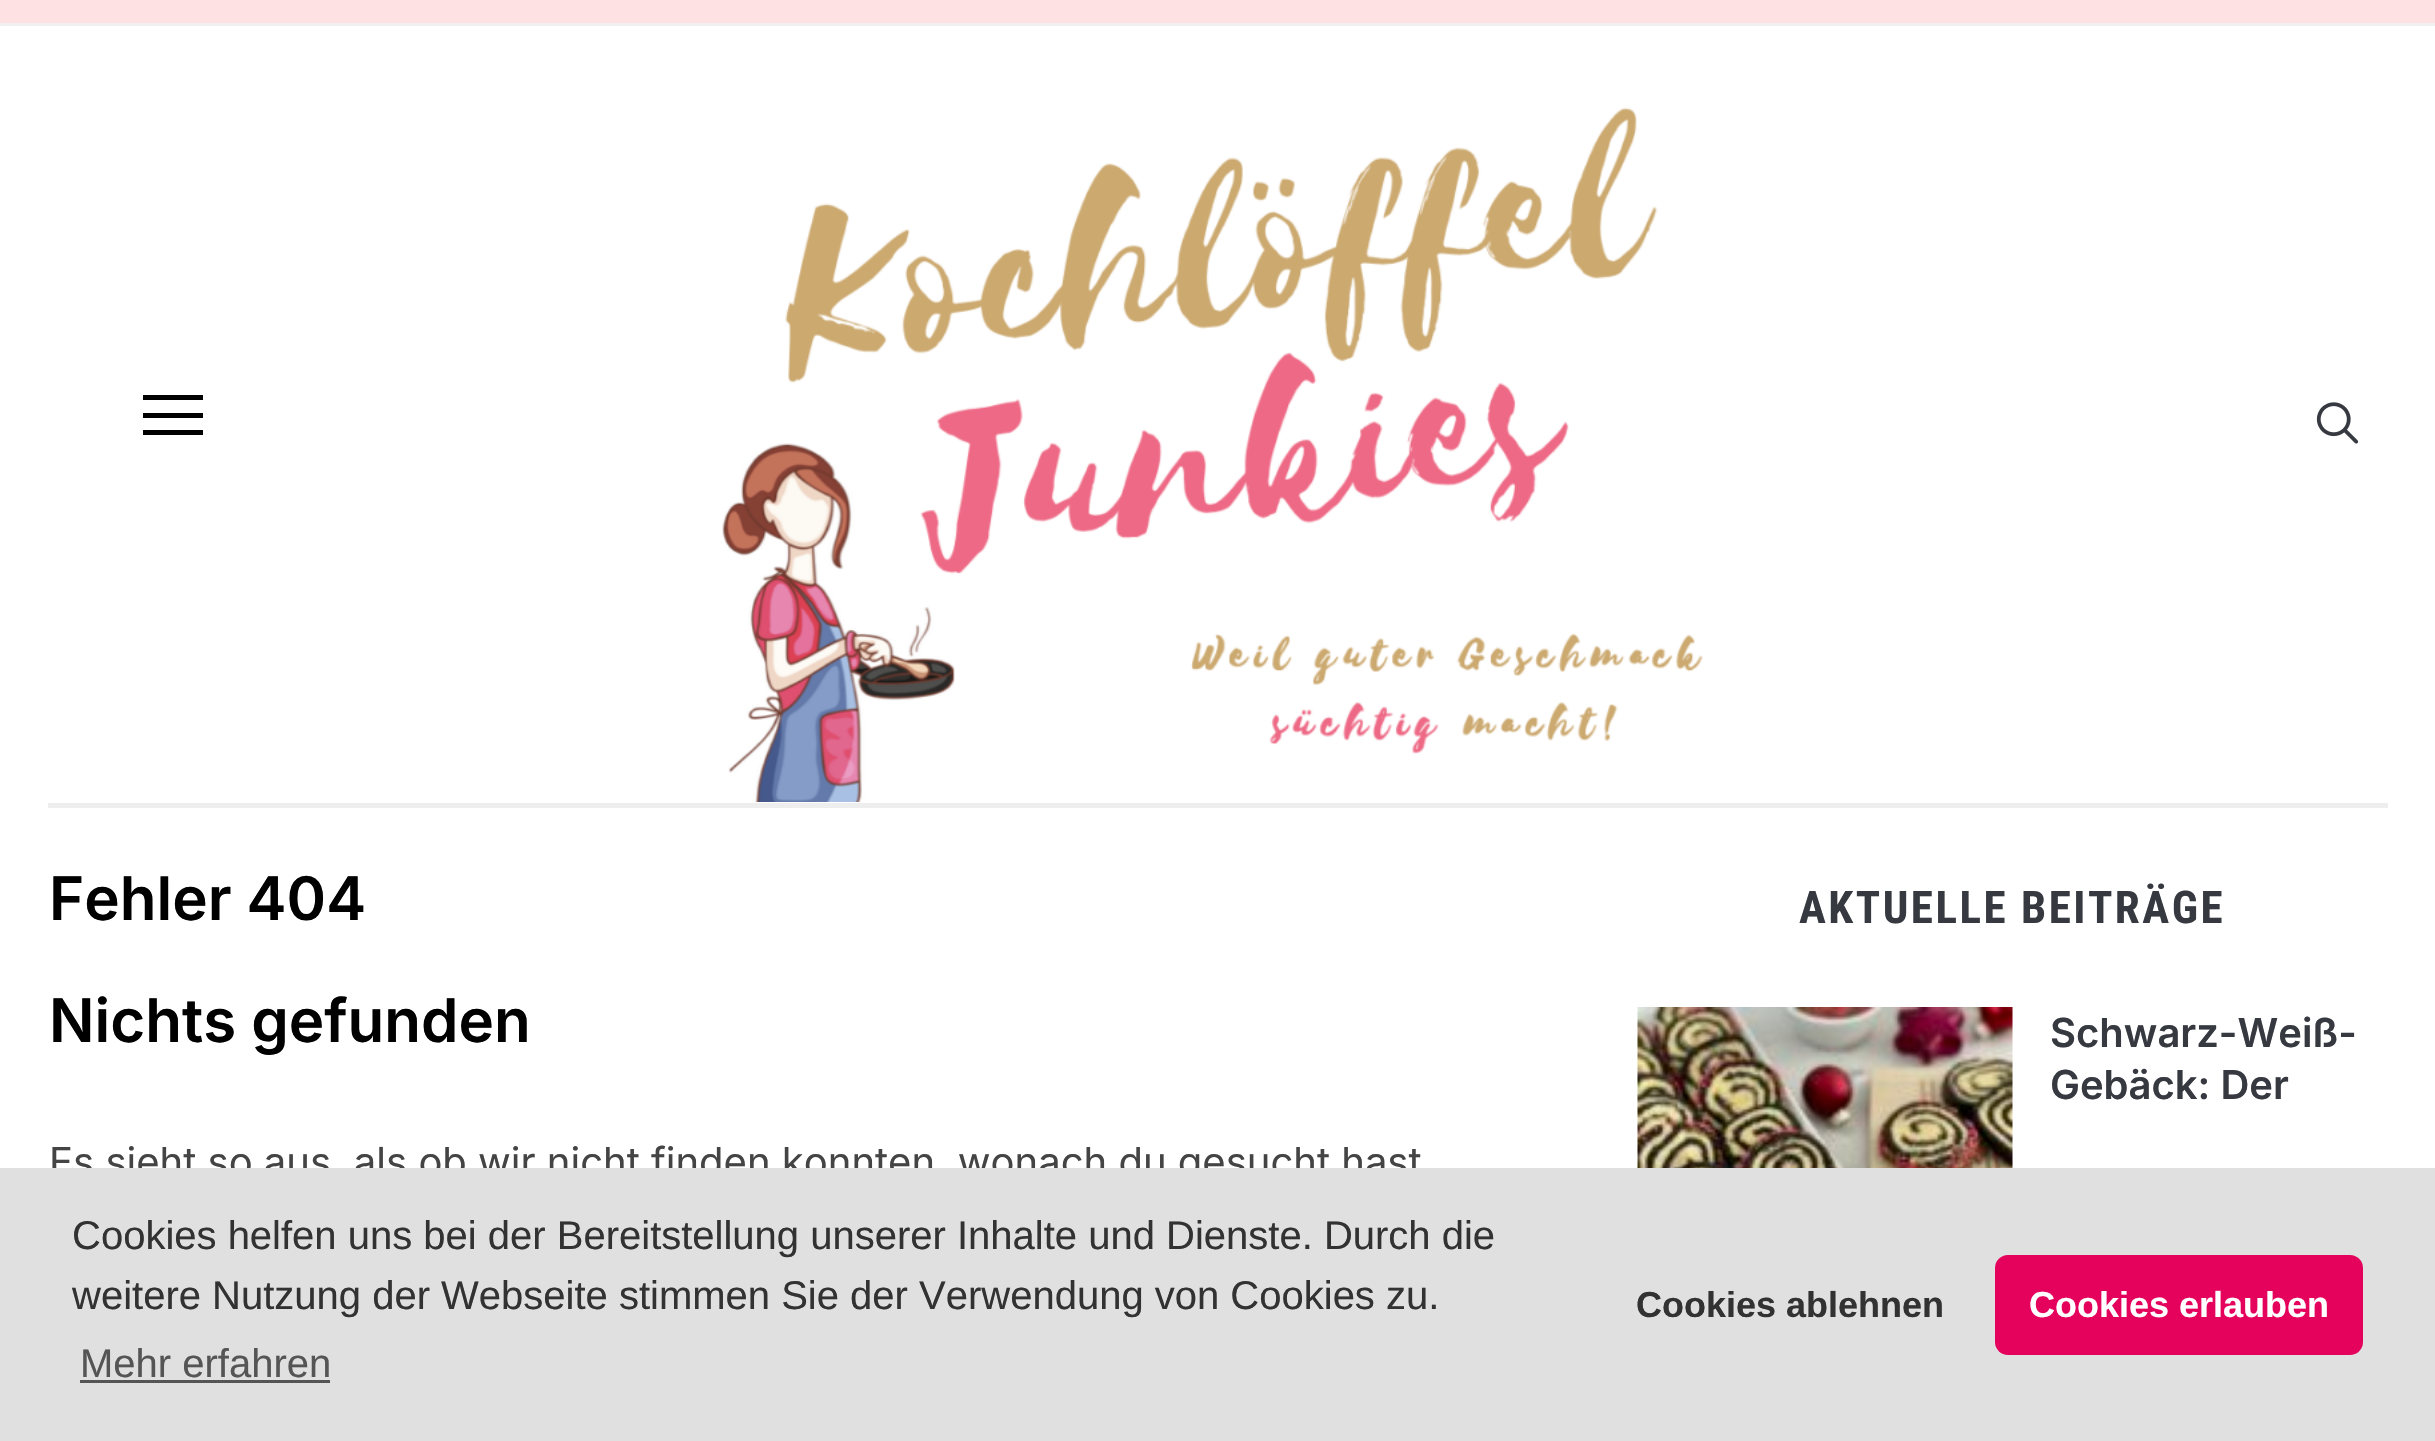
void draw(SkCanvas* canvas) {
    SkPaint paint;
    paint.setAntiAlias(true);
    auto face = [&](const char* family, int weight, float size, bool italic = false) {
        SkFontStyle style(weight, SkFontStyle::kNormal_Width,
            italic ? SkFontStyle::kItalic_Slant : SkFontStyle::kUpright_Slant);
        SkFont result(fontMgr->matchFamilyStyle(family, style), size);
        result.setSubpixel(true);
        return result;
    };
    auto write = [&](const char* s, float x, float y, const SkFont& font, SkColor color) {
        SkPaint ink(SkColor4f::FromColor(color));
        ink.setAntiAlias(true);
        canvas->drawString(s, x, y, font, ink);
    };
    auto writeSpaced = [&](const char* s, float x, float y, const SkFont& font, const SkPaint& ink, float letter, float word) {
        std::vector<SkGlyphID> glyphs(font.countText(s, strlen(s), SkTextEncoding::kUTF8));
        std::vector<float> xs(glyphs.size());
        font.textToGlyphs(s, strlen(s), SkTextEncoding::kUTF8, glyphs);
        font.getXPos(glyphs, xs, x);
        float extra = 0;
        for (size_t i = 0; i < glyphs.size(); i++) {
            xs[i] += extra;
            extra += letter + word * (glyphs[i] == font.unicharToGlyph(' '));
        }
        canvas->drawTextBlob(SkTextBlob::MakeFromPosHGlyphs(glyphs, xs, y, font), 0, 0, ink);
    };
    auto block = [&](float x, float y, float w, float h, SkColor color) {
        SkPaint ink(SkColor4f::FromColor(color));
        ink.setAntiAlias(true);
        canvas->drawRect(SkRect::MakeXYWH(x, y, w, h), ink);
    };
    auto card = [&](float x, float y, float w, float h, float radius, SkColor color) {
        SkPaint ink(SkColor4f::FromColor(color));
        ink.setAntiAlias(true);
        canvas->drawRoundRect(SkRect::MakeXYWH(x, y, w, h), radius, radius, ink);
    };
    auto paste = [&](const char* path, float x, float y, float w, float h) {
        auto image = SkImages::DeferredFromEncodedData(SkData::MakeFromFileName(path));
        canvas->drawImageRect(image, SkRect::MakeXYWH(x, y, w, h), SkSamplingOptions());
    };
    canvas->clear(SK_ColorWHITE);
    block(0, 0, 2435, 23, SkColorSetRGB(254, 225, 226));
    block(0, 23, 2435, 3, SkColorSetRGB(240, 240, 240));
    block(48, 803, 2340, 5, SkColorSetRGB(238, 238, 238));
    block(143, 395, 60, 5, SK_ColorBLACK);
    block(143, 413, 60, 5, SK_ColorBLACK);
    block(143, 430, 60, 5, SK_ColorBLACK);
    paste("pic1.png", 722, 107, 981, 695);
    paste("pic2.png", 2316, 402, 43, 42);
    auto kFont1 = face("Inter", 600, 60);
    write("Fehler 404", 49, 920, kFont1, SK_ColorBLACK);
    write("Nichts gefunden", 49, 1042, kFont1, SK_ColorBLACK);
    auto kFont2 = face("Inter", 400, 40);
    write("Es sieht so aus, als ob wir nicht finden konnten, wonach du gesucht hast", 49, 1176, kFont2, SkColorSetRGB(68, 68, 68));
    auto kFont3 = face("Roboto Condensed", 700, 45);
    paint.setColor(SkColorSetRGB(54, 57, 64));
    writeSpaced("AKTUELLE BEITRÄGE", 1799, 923, kFont3, paint, 2.5f, 0);
    paste("pic3.png", 1637, 1007, 376, 161);
    auto kFont4 = face("Inter", 600, 40);
    write("Schwarz-Weiß-", 2050, 1047, kFont4, SkColorSetRGB(54, 57, 64));
    write("Gebäck: Der", 2050, 1099, kFont4, SkColorSetRGB(54, 57, 64));
    block(0, 1168, 2435, 273, SkColorSetRGB(224, 224, 224));
    auto kFont5 = face("Liberation Sans", 400, 40);
    write("Cookies helfen uns bei der Bereitstellung unserer Inhalte und Dienste. Durch die", 72, 1249, kFont5, SkColorSetRGB(51, 50, 50));
    write("weitere Nutzung der Webseite stimmen Sie der Verwendung von Cookies zu.", 72, 1309, kFont5, SkColorSetRGB(51, 50, 50));
    write("Mehr erfahren", 80, 1377, kFont5, SkColorSetRGB(86, 85, 85));
    block(80, 1380, 250, 3, SkColorSetRGB(86, 85, 85));
    auto kFont6 = face("Liberation Sans", 700, 36);
    write("Cookies ablehnen", 1636, 1317, kFont6, SkColorSetRGB(51, 50, 50));
    card(1995, 1255, 368, 100, 13, SkColorSetRGB(229, 2, 93));
    write("Cookies erlauben", 2029, 1317, kFont6, SK_ColorWHITE);
}
